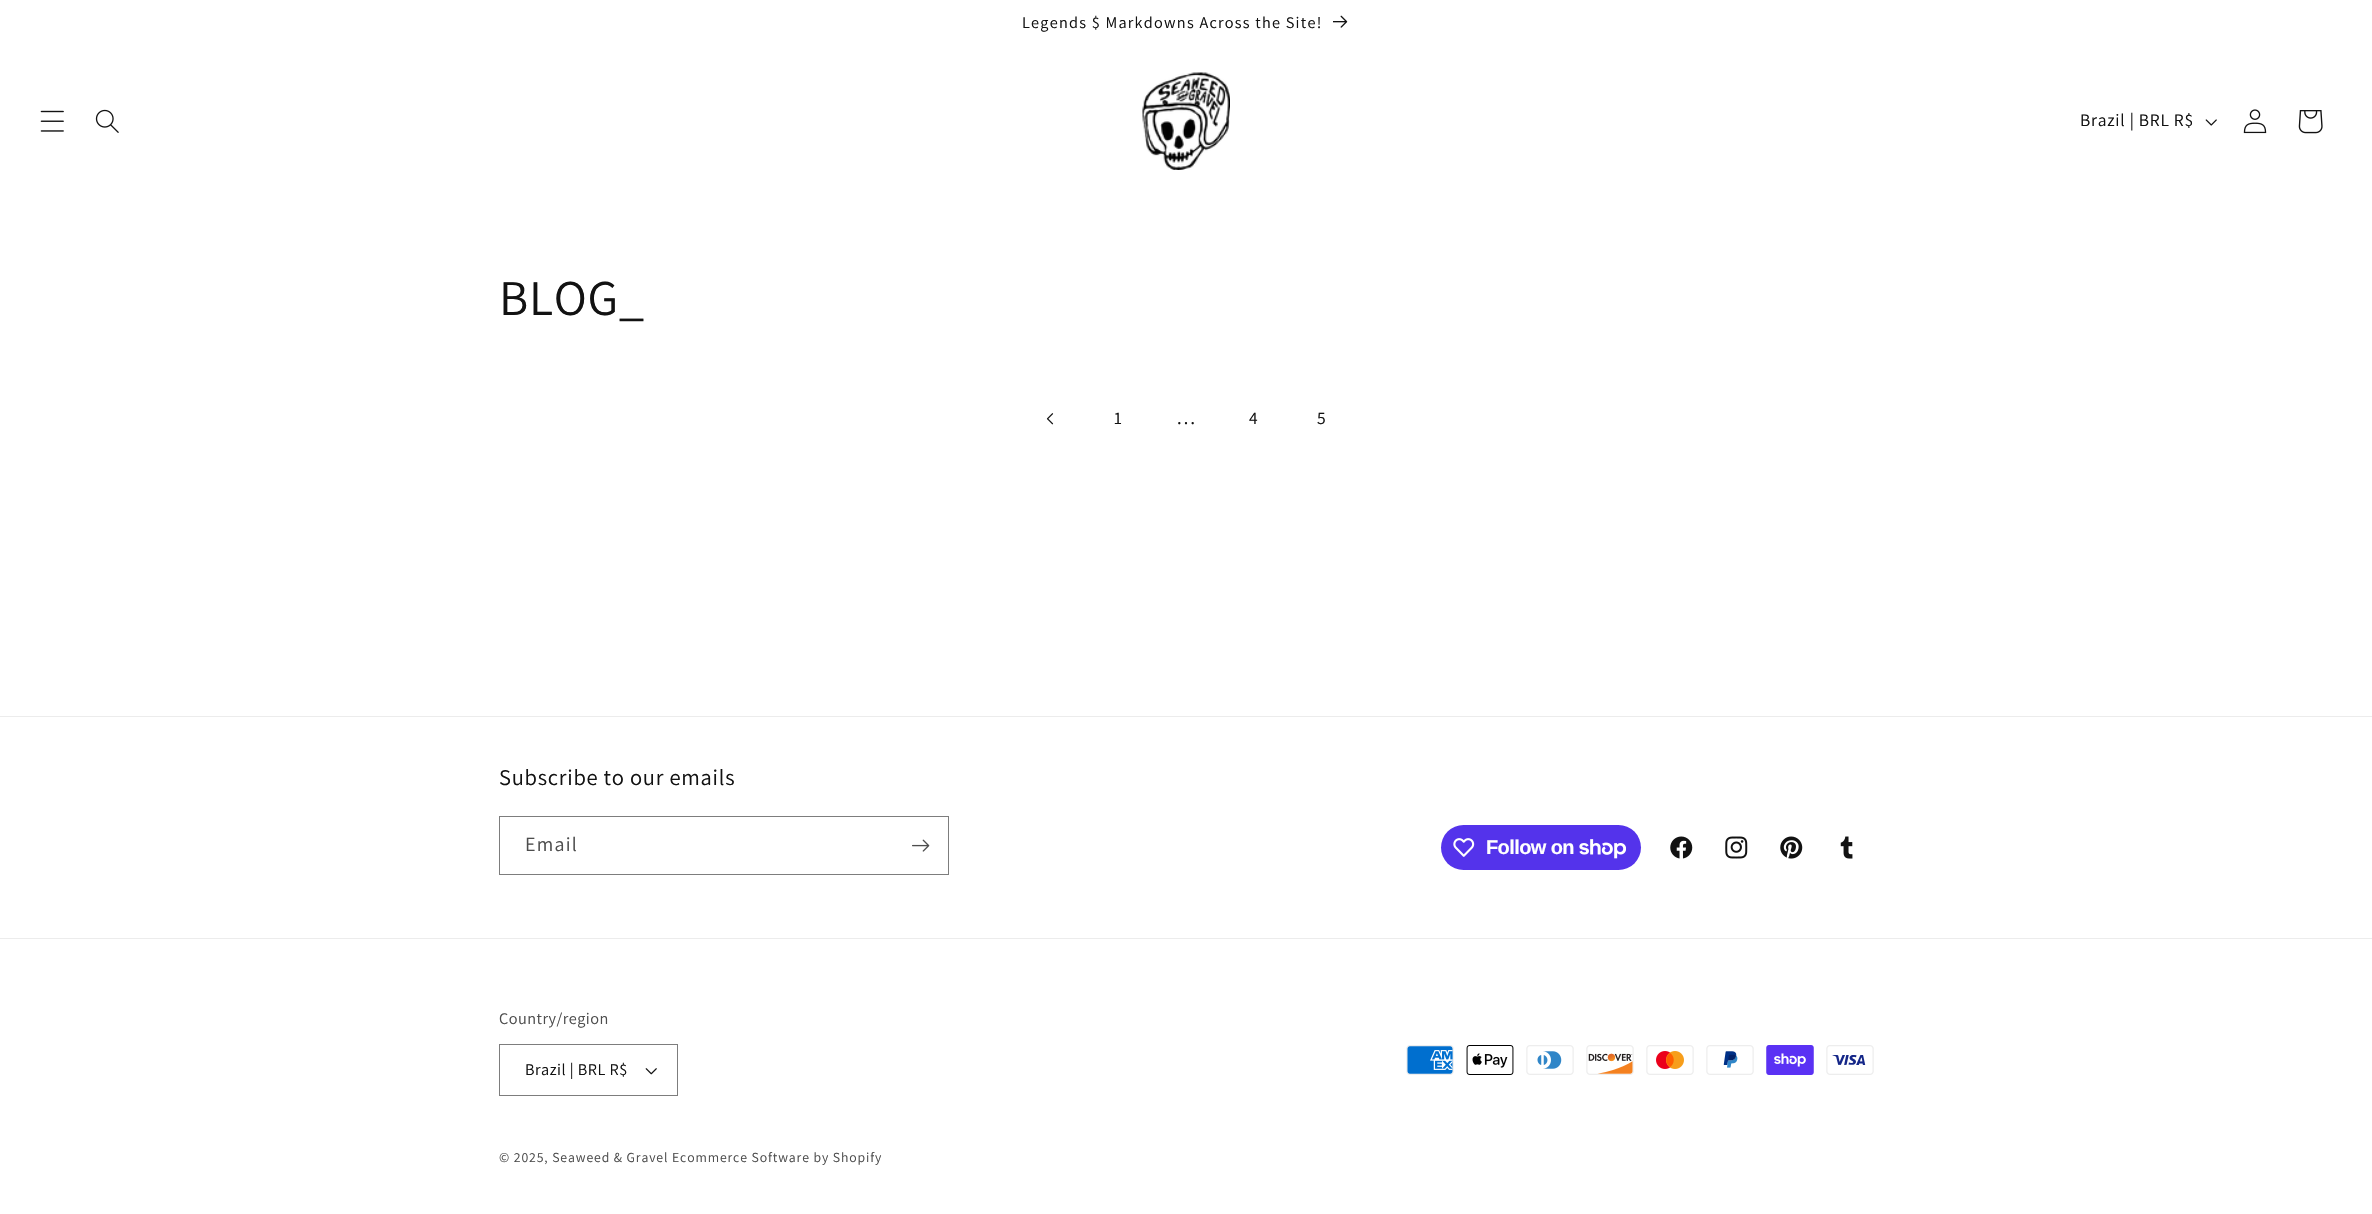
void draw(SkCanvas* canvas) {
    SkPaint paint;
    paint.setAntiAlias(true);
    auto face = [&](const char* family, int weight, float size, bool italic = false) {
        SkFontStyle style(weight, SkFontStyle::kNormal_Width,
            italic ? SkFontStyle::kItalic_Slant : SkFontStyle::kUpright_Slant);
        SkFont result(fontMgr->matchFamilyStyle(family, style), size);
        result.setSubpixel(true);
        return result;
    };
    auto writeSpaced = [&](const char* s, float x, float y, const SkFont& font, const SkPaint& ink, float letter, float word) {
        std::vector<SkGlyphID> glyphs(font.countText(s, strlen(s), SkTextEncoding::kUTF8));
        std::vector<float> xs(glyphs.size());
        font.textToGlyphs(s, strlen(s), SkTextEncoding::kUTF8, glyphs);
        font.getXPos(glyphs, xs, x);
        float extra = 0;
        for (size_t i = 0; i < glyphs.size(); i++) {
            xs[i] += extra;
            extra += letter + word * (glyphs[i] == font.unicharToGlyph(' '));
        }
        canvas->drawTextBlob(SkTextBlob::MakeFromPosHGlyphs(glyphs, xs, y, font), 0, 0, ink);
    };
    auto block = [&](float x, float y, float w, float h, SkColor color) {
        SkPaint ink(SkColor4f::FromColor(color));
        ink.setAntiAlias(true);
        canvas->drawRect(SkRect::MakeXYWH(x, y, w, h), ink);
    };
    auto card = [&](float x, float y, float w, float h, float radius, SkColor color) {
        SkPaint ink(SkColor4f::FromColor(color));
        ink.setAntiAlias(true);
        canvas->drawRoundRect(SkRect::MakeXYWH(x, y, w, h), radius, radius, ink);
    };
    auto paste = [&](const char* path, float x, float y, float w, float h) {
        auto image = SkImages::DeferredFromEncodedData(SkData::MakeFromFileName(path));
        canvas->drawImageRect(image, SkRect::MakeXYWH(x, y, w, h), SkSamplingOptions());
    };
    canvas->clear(SK_ColorWHITE);
    auto kFont1 = face("Assistant", 400, 16.25f);
    paint.setColor(SkColorSetRGB(18, 18, 18));
    writeSpaced("Legends $ Markdowns Across the Site!", 1022, 28, kFont1, paint, 1.25f, 0);
    paste("pic1.png", 1333, 15, 15, 13);
    paste("pic2.png", 40, 110, 24, 22);
    paste("pic3.png", 95, 109, 24, 24);
    paste("pic4.png", 1142, 72, 88, 98);
    auto kFont2 = face("Assistant", 400, 17.5f);
    writeSpaced("Brazil | BRL R$", 2080, 126, kFont2, paint, 0.75f, 0);
    paste("pic5.png", 2205, 119, 12, 7);
    paste("pic6.png", 2243, 109, 24, 25);
    paste("pic7.png", 2298, 110, 25, 24);
    auto kFont3 = face("Assistant", 400, 50);
    writeSpaced("BLOG_", 499, 315, kFont3, paint, 0.75f, 0);
    paste("pic8.png", 1046, 413, 8, 12);
    writeSpaced("1", 1114, 424, kFont2, paint, 0.75f, 0);
    auto kFont4 = face("Assistant", 400, 20);
    writeSpaced("…", 1176, 424, kFont4, paint, 0.75f, 0);
    writeSpaced("4", 1249, 424, kFont2, paint, 0.75f, 0);
    writeSpaced("5", 1317, 424, kFont2, paint, 0.75f, 0);
    block(0, 716, 2372, 1, SkColorSetRGB(236, 236, 236));
    auto kFont5 = face("Assistant", 400, 22.5f);
    writeSpaced("Subscribe to our emails", 499, 785, kFont5, paint, 0.75f, 0);
    paint.setStyle(SkPaint::kStroke_Style);
    paint.setStrokeWidth(1);
    paint.setColor(SkColorSetRGB(125, 125, 125));
    canvas->drawRect(SkRect::MakeXYWH(499.5f, 816.5f, 449, 58), paint);
    paint.setStyle(SkPaint::kFill_Style);
    paint.setColor(SkColorSetRGB(77, 77, 77));
    writeSpaced("Email", 525, 851, kFont4, paint, 1.25f, 0);
    paste("pic9.png", 912, 839, 18, 13);
    card(1441, 825, 200, 45, 22.5f, SkColorSetRGB(84, 51, 235));
    paste("pic10.png", 1453, 838, 22, 19);
    auto kFont6 = face("Liberation Sans", 700, 20);
    paint.setColor(SK_ColorWHITE);
    writeSpaced("Follow on", 1486, 854, kFont6, paint, -0.6f, 0);
    paste("pic11.png", 1579, 839, 47, 20);
    paste("pic12.png", 1670, 836, 23, 23);
    paste("pic13.png", 1725, 836, 23, 23);
    paste("pic14.png", 1780, 836, 23, 23);
    paste("pic15.png", 1840, 836, 13, 23);
    block(0, 938, 2372, 1, SkColorSetRGB(236, 236, 236));
    paint.setColor(SkColorSetRGB(77, 77, 77));
    writeSpaced("Country/region", 499, 1024, kFont1, paint, 0.5f, 0);
    paste("pic16.png", 645, 1068, 12, 7);
    paint.setStyle(SkPaint::kStroke_Style);
    paint.setColor(SkColorSetRGB(125, 125, 125));
    canvas->drawRect(SkRect::MakeXYWH(499.5f, 1044.5f, 178, 51), paint);
    paint.setStyle(SkPaint::kFill_Style);
    paint.setColor(SkColorSetRGB(18, 18, 18));
    writeSpaced("Brazil | BRL R$", 525, 1075, kFont1, paint, 0.5f, 0);
    paste("pic17.png", 1406, 1045, 48, 30);
    paste("pic18.png", 1466, 1045, 48, 30);
    paste("pic19.png", 1526, 1045, 48, 30);
    paste("pic20.png", 1586, 1045, 48, 30);
    paste("pic21.png", 1646, 1045, 48, 30);
    paste("pic22.png", 1706, 1045, 48, 30);
    paste("pic23.png", 1766, 1045, 48, 30);
    paste("pic24.png", 1826, 1045, 48, 30);
    auto kFont7 = face("Assistant", 400, 13.75f);
    paint.setColor(SkColorSetRGB(77, 77, 77));
    writeSpaced("© 2025, Seaweed & Gravel Ecommerce Software by Shopify", 499, 1162, kFont7, paint, 0.88f, 0);
}
